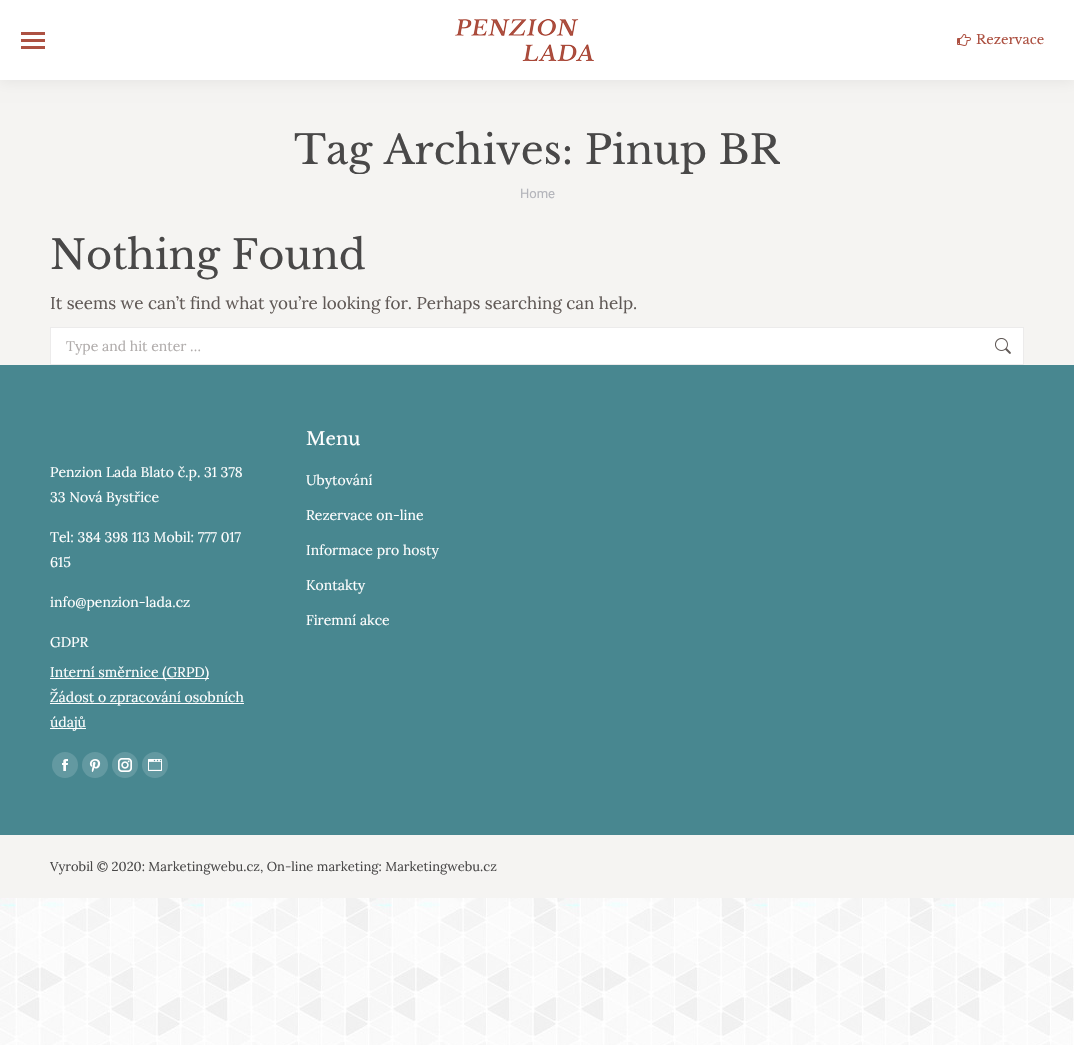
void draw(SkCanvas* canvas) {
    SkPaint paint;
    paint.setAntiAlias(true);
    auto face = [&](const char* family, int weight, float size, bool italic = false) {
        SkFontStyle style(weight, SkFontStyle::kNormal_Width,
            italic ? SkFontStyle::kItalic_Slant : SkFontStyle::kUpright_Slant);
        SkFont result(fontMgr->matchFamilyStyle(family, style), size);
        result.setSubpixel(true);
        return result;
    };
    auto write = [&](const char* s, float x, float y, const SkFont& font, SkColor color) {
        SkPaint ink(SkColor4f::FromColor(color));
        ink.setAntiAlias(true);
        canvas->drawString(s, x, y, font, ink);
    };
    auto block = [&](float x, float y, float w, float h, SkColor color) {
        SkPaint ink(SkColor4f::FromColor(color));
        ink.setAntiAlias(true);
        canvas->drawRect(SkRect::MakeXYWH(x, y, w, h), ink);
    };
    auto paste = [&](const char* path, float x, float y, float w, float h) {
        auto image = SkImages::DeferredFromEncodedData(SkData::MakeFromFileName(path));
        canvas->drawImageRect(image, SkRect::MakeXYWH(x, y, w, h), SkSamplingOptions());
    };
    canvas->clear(SK_ColorWHITE);
    paste("pic1.png", 0, 898, 1074, 147);
    block(0, 80, 1074, 285, SkColorSetRGB(245, 244, 242));
    paint.setColor(SkColorSetARGB(18, 0, 0, 0));
    paint.setMaskFilter(SkMaskFilter::MakeBlur(kNormal_SkBlurStyle, 7.5f));
    canvas->drawRect(SkRect::MakeXYWH(-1, -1, 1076, 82), paint);
    paint.setMaskFilter(nullptr);
    block(0, 0, 1074, 80, SK_ColorWHITE);
    block(21, 32, 24, 3, SkColorSetRGB(173, 81, 66));
    block(21, 39, 24, 3, SkColorSetRGB(173, 81, 66));
    block(21, 46, 24, 3, SkColorSetRGB(173, 81, 66));
    paste("pic2.png", 455, 19, 139, 42);
    paste("pic3.png", 957, 34, 14, 12);
    auto kFont1 = face("Libre Baskerville", 400, 13);
    write("Rezervace", 976, 44, kFont1, SkColorSetRGB(173, 81, 66));
    canvas->save();
    canvas->clipRect(SkRect::MakeXYWH(294, 126, 486, 48));
    auto kFont2 = face("Libre Baskerville", 400, 40);
    write("Tag Archives: Pinup BR", 294, 164, kFont2, SkColorSetRGB(73, 72, 72));
    canvas->restore();
    auto kFont3 = face("Roboto", 400, 13);
    write("Home", 520, 198, kFont3, SkColorSetRGB(180, 181, 187));
    write("Nothing Found", 50, 269, kFont2, SkColorSetRGB(73, 72, 72));
    auto kFont4 = face("Lora", 400, 17);
    write("It seems we can’t find what you’re looking for. Perhaps searching can help.", 50, 309, kFont4, SkColorSetRGB(96, 89, 86));
    paint.setColor(SK_ColorWHITE);
    canvas->drawRect(SkRect::MakeXYWH(50.5f, 327.5f, 973, 37), paint);
    paint.setStyle(SkPaint::kStroke_Style);
    paint.setStrokeWidth(1);
    paint.setColor(SkColorSetRGB(236, 235, 235));
    canvas->drawRect(SkRect::MakeXYWH(50.5f, 327.5f, 973, 37), paint);
    auto kFont5 = face("Lora", 400, 14);
    write("Type and hit enter …", 66, 351, kFont5, SkColorSetRGB(176, 172, 171));
    paste("pic4.png", 995, 338, 16, 16);
    block(0, 365, 1074, 470, SkColorSetRGB(72, 135, 144));
    write("Penzion Lada Blato č.p. 31 378", 50, 477, kFont5, SK_ColorWHITE);
    write("33 Nová Bystřice", 50, 502, kFont5, SK_ColorWHITE);
    write("Tel: 384 398 113 Mobil: 777 017", 50, 542, kFont5, SK_ColorWHITE);
    write("615", 50, 567, kFont5, SK_ColorWHITE);
    write("info@penzion-lada.cz", 50, 607, kFont5, SK_ColorWHITE);
    write("GDPR", 50, 647, kFont5, SK_ColorWHITE);
    block(50, 678, 159, 1, SK_ColorWHITE);
    write("Interní směrnice (GRPD)", 50, 677, kFont5, SK_ColorWHITE);
    block(50, 703, 194, 1, SK_ColorWHITE);
    write("Žádost o zpracování osobních", 50, 702, kFont5, SK_ColorWHITE);
    block(50, 728, 36, 1, SK_ColorWHITE);
    write("údajů", 50, 727, kFont5, SK_ColorWHITE);
    paint.setStyle(SkPaint::kFill_Style);
    paint.setColor(SkColorSetRGB(99, 153, 161));
    canvas->drawCircle(65, 765, 13, paint);
    paste("pic5.png", 62, 759, 6, 12);
    canvas->drawCircle(95, 765, 13, paint);
    paste("pic6.png", 89, 759, 12, 13);
    canvas->drawCircle(125, 765, 13, paint);
    paste("pic7.png", 118, 758, 14, 14);
    canvas->drawCircle(155, 765, 13, paint);
    paste("pic8.png", 148, 759, 14, 12);
    auto kFont6 = face("Libre Baskerville", 400, 18);
    write("Menu", 306, 445, kFont6, SK_ColorWHITE);
    write("Ubytování", 306, 485, kFont5, SK_ColorWHITE);
    write("Rezervace on-line", 306, 520, kFont5, SK_ColorWHITE);
    write("Informace pro hosty", 306, 555, kFont5, SK_ColorWHITE);
    write("Kontakty", 306, 590, kFont5, SK_ColorWHITE);
    write("Firemní akce", 306, 625, kFont5, SK_ColorWHITE);
    block(0, 835, 1074, 63, SkColorSetRGB(245, 244, 242));
    auto kFont7 = face("Lora", 400, 13);
    write("Vyrobil © 2020: Marketingwebu.cz, On-line marketing: Marketingwebu.cz", 50, 871, kFont7, SkColorSetRGB(73, 72, 72));
}
